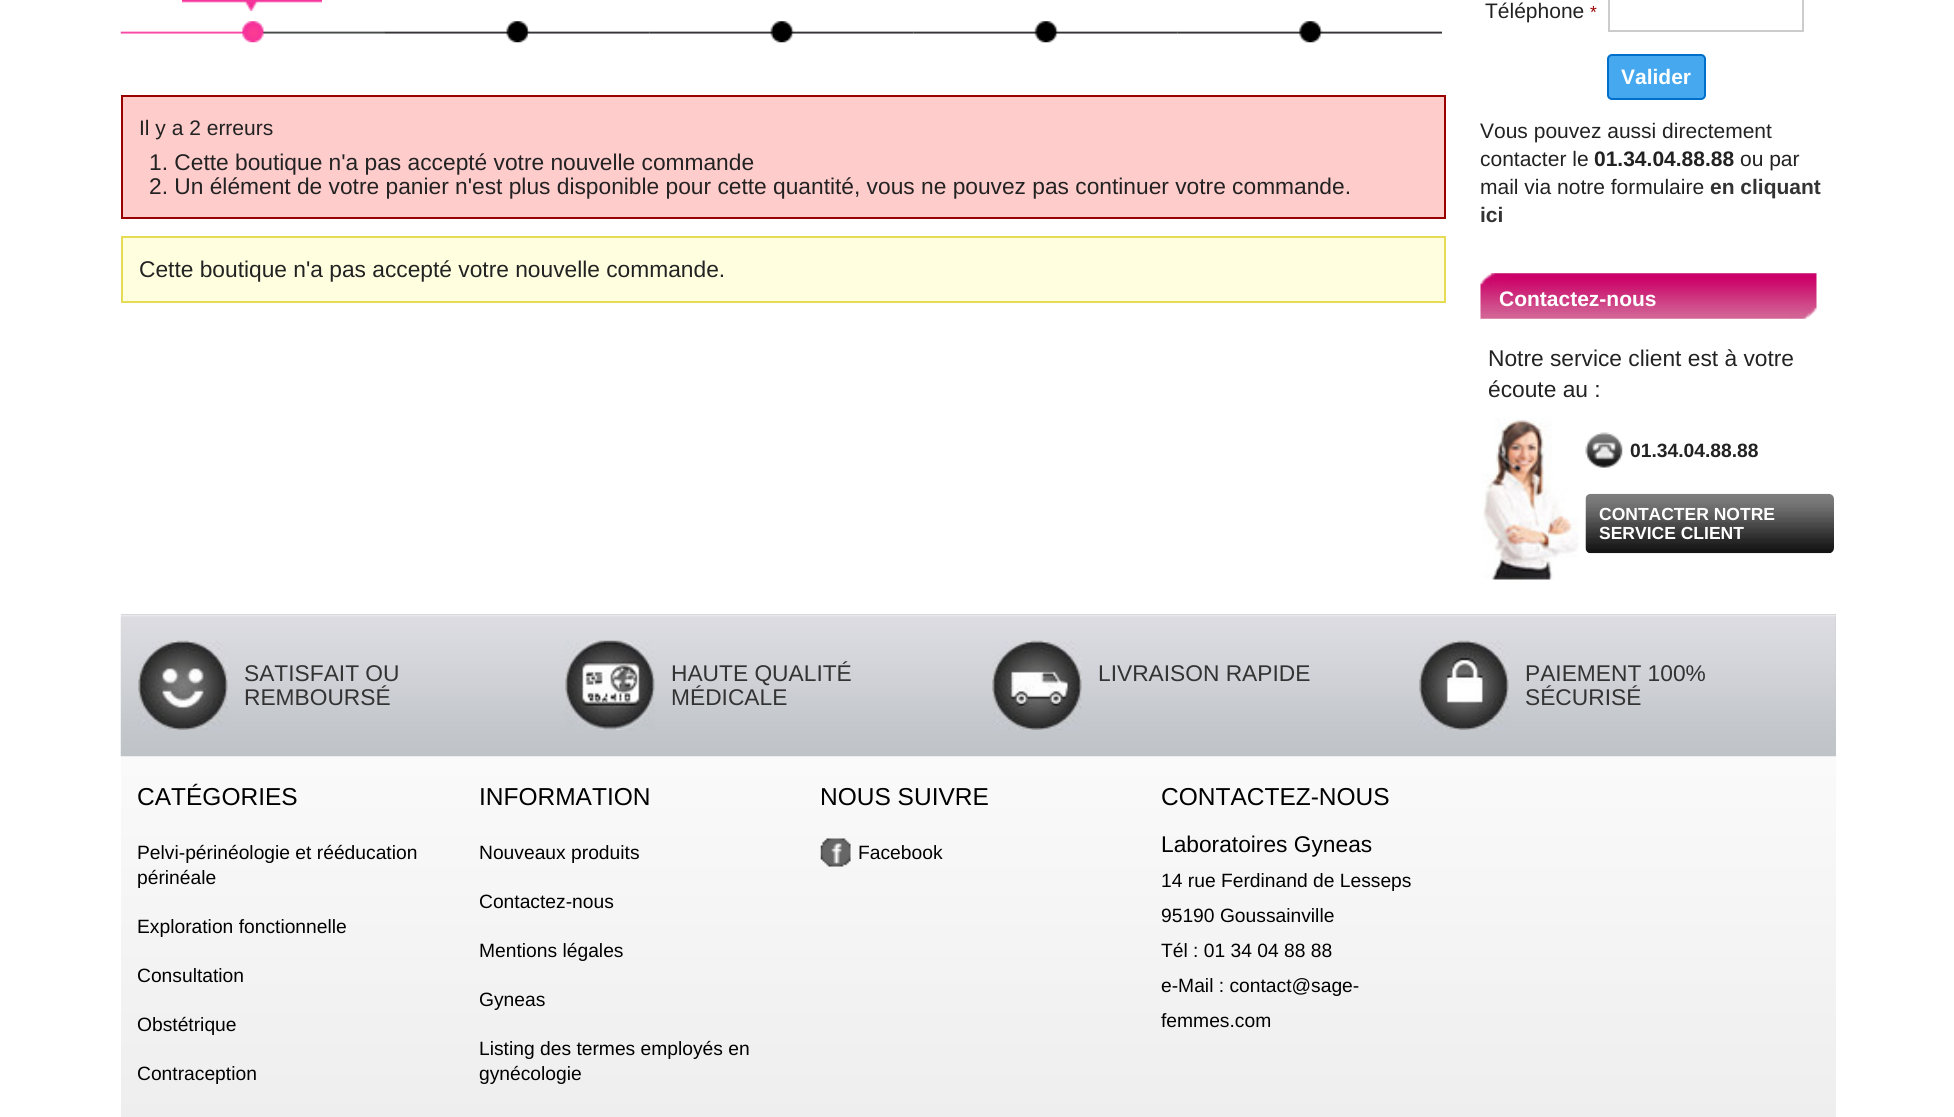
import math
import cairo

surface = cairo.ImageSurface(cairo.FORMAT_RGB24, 1954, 1117)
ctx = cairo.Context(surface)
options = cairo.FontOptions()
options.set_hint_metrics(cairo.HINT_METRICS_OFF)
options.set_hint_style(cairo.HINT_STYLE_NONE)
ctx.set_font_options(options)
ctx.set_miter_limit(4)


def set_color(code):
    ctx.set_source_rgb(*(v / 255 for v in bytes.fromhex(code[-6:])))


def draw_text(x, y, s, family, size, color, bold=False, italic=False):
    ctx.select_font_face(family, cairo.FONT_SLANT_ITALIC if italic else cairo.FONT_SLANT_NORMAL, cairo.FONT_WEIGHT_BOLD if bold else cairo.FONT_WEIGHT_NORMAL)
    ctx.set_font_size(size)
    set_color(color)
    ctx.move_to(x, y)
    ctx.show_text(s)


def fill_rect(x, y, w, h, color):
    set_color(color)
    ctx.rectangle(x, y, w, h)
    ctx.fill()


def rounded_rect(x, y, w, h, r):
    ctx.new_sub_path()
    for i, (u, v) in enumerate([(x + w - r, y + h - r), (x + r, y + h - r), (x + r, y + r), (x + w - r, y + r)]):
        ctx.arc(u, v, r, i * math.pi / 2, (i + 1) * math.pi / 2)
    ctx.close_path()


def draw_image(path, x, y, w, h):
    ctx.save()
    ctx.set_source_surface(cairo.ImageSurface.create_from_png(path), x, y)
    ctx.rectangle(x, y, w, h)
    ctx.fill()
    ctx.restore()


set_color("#ffffff")
ctx.paint()
draw_image("assets/img1.png", 120, 21, 265, 22)
draw_image("assets/img2.png", 182, 0, 140, 11)
draw_image("assets/img3.png", 385, 21, 265, 22)
draw_image("assets/img4.png", 649, 21, 265, 22)
draw_image("assets/img5.png", 913, 21, 265, 22)
draw_image("assets/img6.png", 1177, 21, 265, 22)
set_color("#ffcccc")
ctx.rectangle(122, 96, 1323, 122)
ctx.fill_preserve()
set_color("#990000")
ctx.stroke()
draw_text(139, 135, "Il y a 2 erreurs", "Liberation Sans", 21, "#222222")
draw_text(149, 170, "1. Cette boutique n'a pas accepté votre nouvelle commande", "Liberation Sans", 22.75, "#222222")
draw_text(149, 194, "2. Un élément de votre panier n'est plus disponible pour cette quantité, vous ne pouvez pas continuer votre commande.", "Liberation Sans", 22.75, "#222222")
set_color("#ffffe0")
ctx.rectangle(122, 237, 1323, 65)
ctx.fill_preserve()
set_color("#e6db55")
ctx.stroke()
draw_text(139, 277, "Cette boutique n'a pas accepté votre nouvelle commande.", "Liberation Sans", 22.75, "#222222")
draw_text(1485, 18, "Téléphone", "Liberation Sans", 21, "#222222")
draw_text(1590, 18, "*", "Liberation Sans", 17.5, "#990000")
ctx.rectangle(1609, -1, 194, 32)
set_color("#cccccc")
ctx.stroke()
set_color("#46a8ef")
rounded_rect(1608, 55, 97, 44, 4)
ctx.fill_preserve()
set_color("#006fcc")
ctx.stroke()
draw_text(1621, 84, "Valider", "Liberation Sans", 21, "#ffffff", bold=True)
draw_text(1480, 138, "Vous pouvez aussi directement", "Liberation Sans", 21, "#222222")
draw_text(1480, 166, "contacter le", "Liberation Sans", 21, "#222222")
draw_text(1594, 166, "01.34.04.88.88", "Liberation Sans", 21, "#222222", bold=True)
draw_text(1740, 166, "ou par", "Liberation Sans", 21, "#222222")
draw_text(1480, 194, "mail via notre formulaire", "Liberation Sans", 21, "#222222")
draw_text(1710, 194, "en cliquant", "Liberation Sans", 21, "#333333", bold=True)
draw_text(1480, 222, "ici", "Liberation Sans", 21, "#333333", bold=True)
draw_image("assets/img7.png", 1480, 273, 337, 46)
draw_text(1499, 306, "Contactez-nous", "Liberation Sans", 21, "#ffffff", bold=True)
draw_image("assets/img8.png", 1481, 418, 98, 162)
draw_text(1488, 366, "Notre service client est à votre", "Liberation Sans", 22.75, "#222222")
draw_text(1488, 397, "écoute au :", "Liberation Sans", 22.75, "#222222")
draw_image("assets/img9.png", 1585, 432, 38, 36)
draw_text(1630, 457, "01.34.04.88.88", "Liberation Sans", 19.25, "#222222", bold=True)
draw_image("assets/img10.png", 1585, 493, 249, 61)
draw_text(1599, 520, "CONTACTER NOTRE", "Liberation Sans", 17.5, "#ffffff", bold=True)
draw_text(1599, 539, "SERVICE CLIENT", "Liberation Sans", 17.5, "#ffffff", bold=True)
gradient = cairo.LinearGradient(978, 614, 978, 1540)
gradient.add_color_stop_rgba(0, 1, 1, 1, 1)
gradient.add_color_stop_rgba(0.58, 0.929, 0.929, 0.929, 1)
gradient.add_color_stop_rgba(0.81, 0.886, 0.886, 0.886, 1)
gradient.add_color_stop_rgba(1, 0.82, 0.82, 0.82, 1)
ctx.set_source(gradient)
ctx.rectangle(121, 756, 1715, 361)
ctx.fill()
fill_rect(121, 614, 1715, 142, "#c3c7cb")
draw_image("assets/img11.png", 120, 614, 1716, 143)
draw_image("assets/img12.png", 138, 640, 90, 90)
draw_text(244, 681, "SATISFAIT OU", "Liberation Sans", 22.75, "#333333")
draw_text(244, 705, "REMBOURSÉ", "Liberation Sans", 22.75, "#333333")
draw_image("assets/img13.png", 565, 640, 90, 90)
draw_text(671, 681, "HAUTE QUALITÉ", "Liberation Sans", 22.75, "#333333")
draw_text(671, 705, "MÉDICALE", "Liberation Sans", 22.75, "#333333")
draw_image("assets/img14.png", 992, 640, 90, 90)
draw_text(1098, 681, "LIVRAISON RAPIDE", "Liberation Sans", 22.75, "#333333")
draw_image("assets/img15.png", 1419, 640, 90, 90)
draw_text(1525, 681, "PAIEMENT 100%", "Liberation Sans", 22.75, "#333333")
draw_text(1525, 705, "SÉCURISÉ", "Liberation Sans", 22.75, "#333333")
draw_text(137, 805, "CATÉGORIES", "Liberation Sans", 24.5, "#000000")
draw_text(137, 859, "Pelvi-périnéologie et rééducation", "Liberation Sans", 19.25, "#000000")
draw_text(137, 884, "périnéale", "Liberation Sans", 19.25, "#000000")
draw_text(137, 933, "Exploration fonctionnelle", "Liberation Sans", 19.25, "#000000")
draw_text(137, 982, "Consultation", "Liberation Sans", 19.25, "#000000")
draw_text(137, 1031, "Obstétrique", "Liberation Sans", 19.25, "#000000")
draw_text(137, 1080, "Contraception", "Liberation Sans", 19.25, "#000000")
draw_text(479, 805, "INFORMATION", "Liberation Sans", 24.5, "#000000")
draw_text(479, 859, "Nouveaux produits", "Liberation Sans", 19.25, "#000000")
draw_text(479, 908, "Contactez-nous", "Liberation Sans", 19.25, "#000000")
draw_text(479, 957, "Mentions légales", "Liberation Sans", 19.25, "#000000")
draw_text(479, 1006, "Gyneas", "Liberation Sans", 19.25, "#000000")
draw_text(479, 1055, "Listing des termes employés en", "Liberation Sans", 19.25, "#000000")
draw_text(479, 1080, "gynécologie", "Liberation Sans", 19.25, "#000000")
draw_text(820, 805, "NOUS SUIVRE", "Liberation Sans", 24.5, "#000000")
draw_image("assets/img16.png", 820, 838, 31, 29)
draw_text(858, 859, "Facebook", "Liberation Sans", 19.25, "#000000")
draw_text(1161, 805, "CONTACTEZ-NOUS", "Liberation Sans", 24.5, "#000000")
draw_text(1161, 852, "Laboratoires Gyneas", "Liberation Sans", 22.75, "#000000")
draw_text(1161, 887, "14 rue Ferdinand de Lesseps", "Liberation Sans", 19.25, "#000000")
draw_text(1161, 922, "95190 Goussainville", "Liberation Sans", 19.25, "#000000")
draw_text(1161, 957, "Tél : 01 34 04 88 88", "Liberation Sans", 19.25, "#000000")
draw_text(1161, 992, "e-Mail : contact@sage-", "Liberation Sans", 19.25, "#000000")
draw_text(1161, 1027, "femmes.com", "Liberation Sans", 19.25, "#000000")
surface.write_to_png("output.png")
